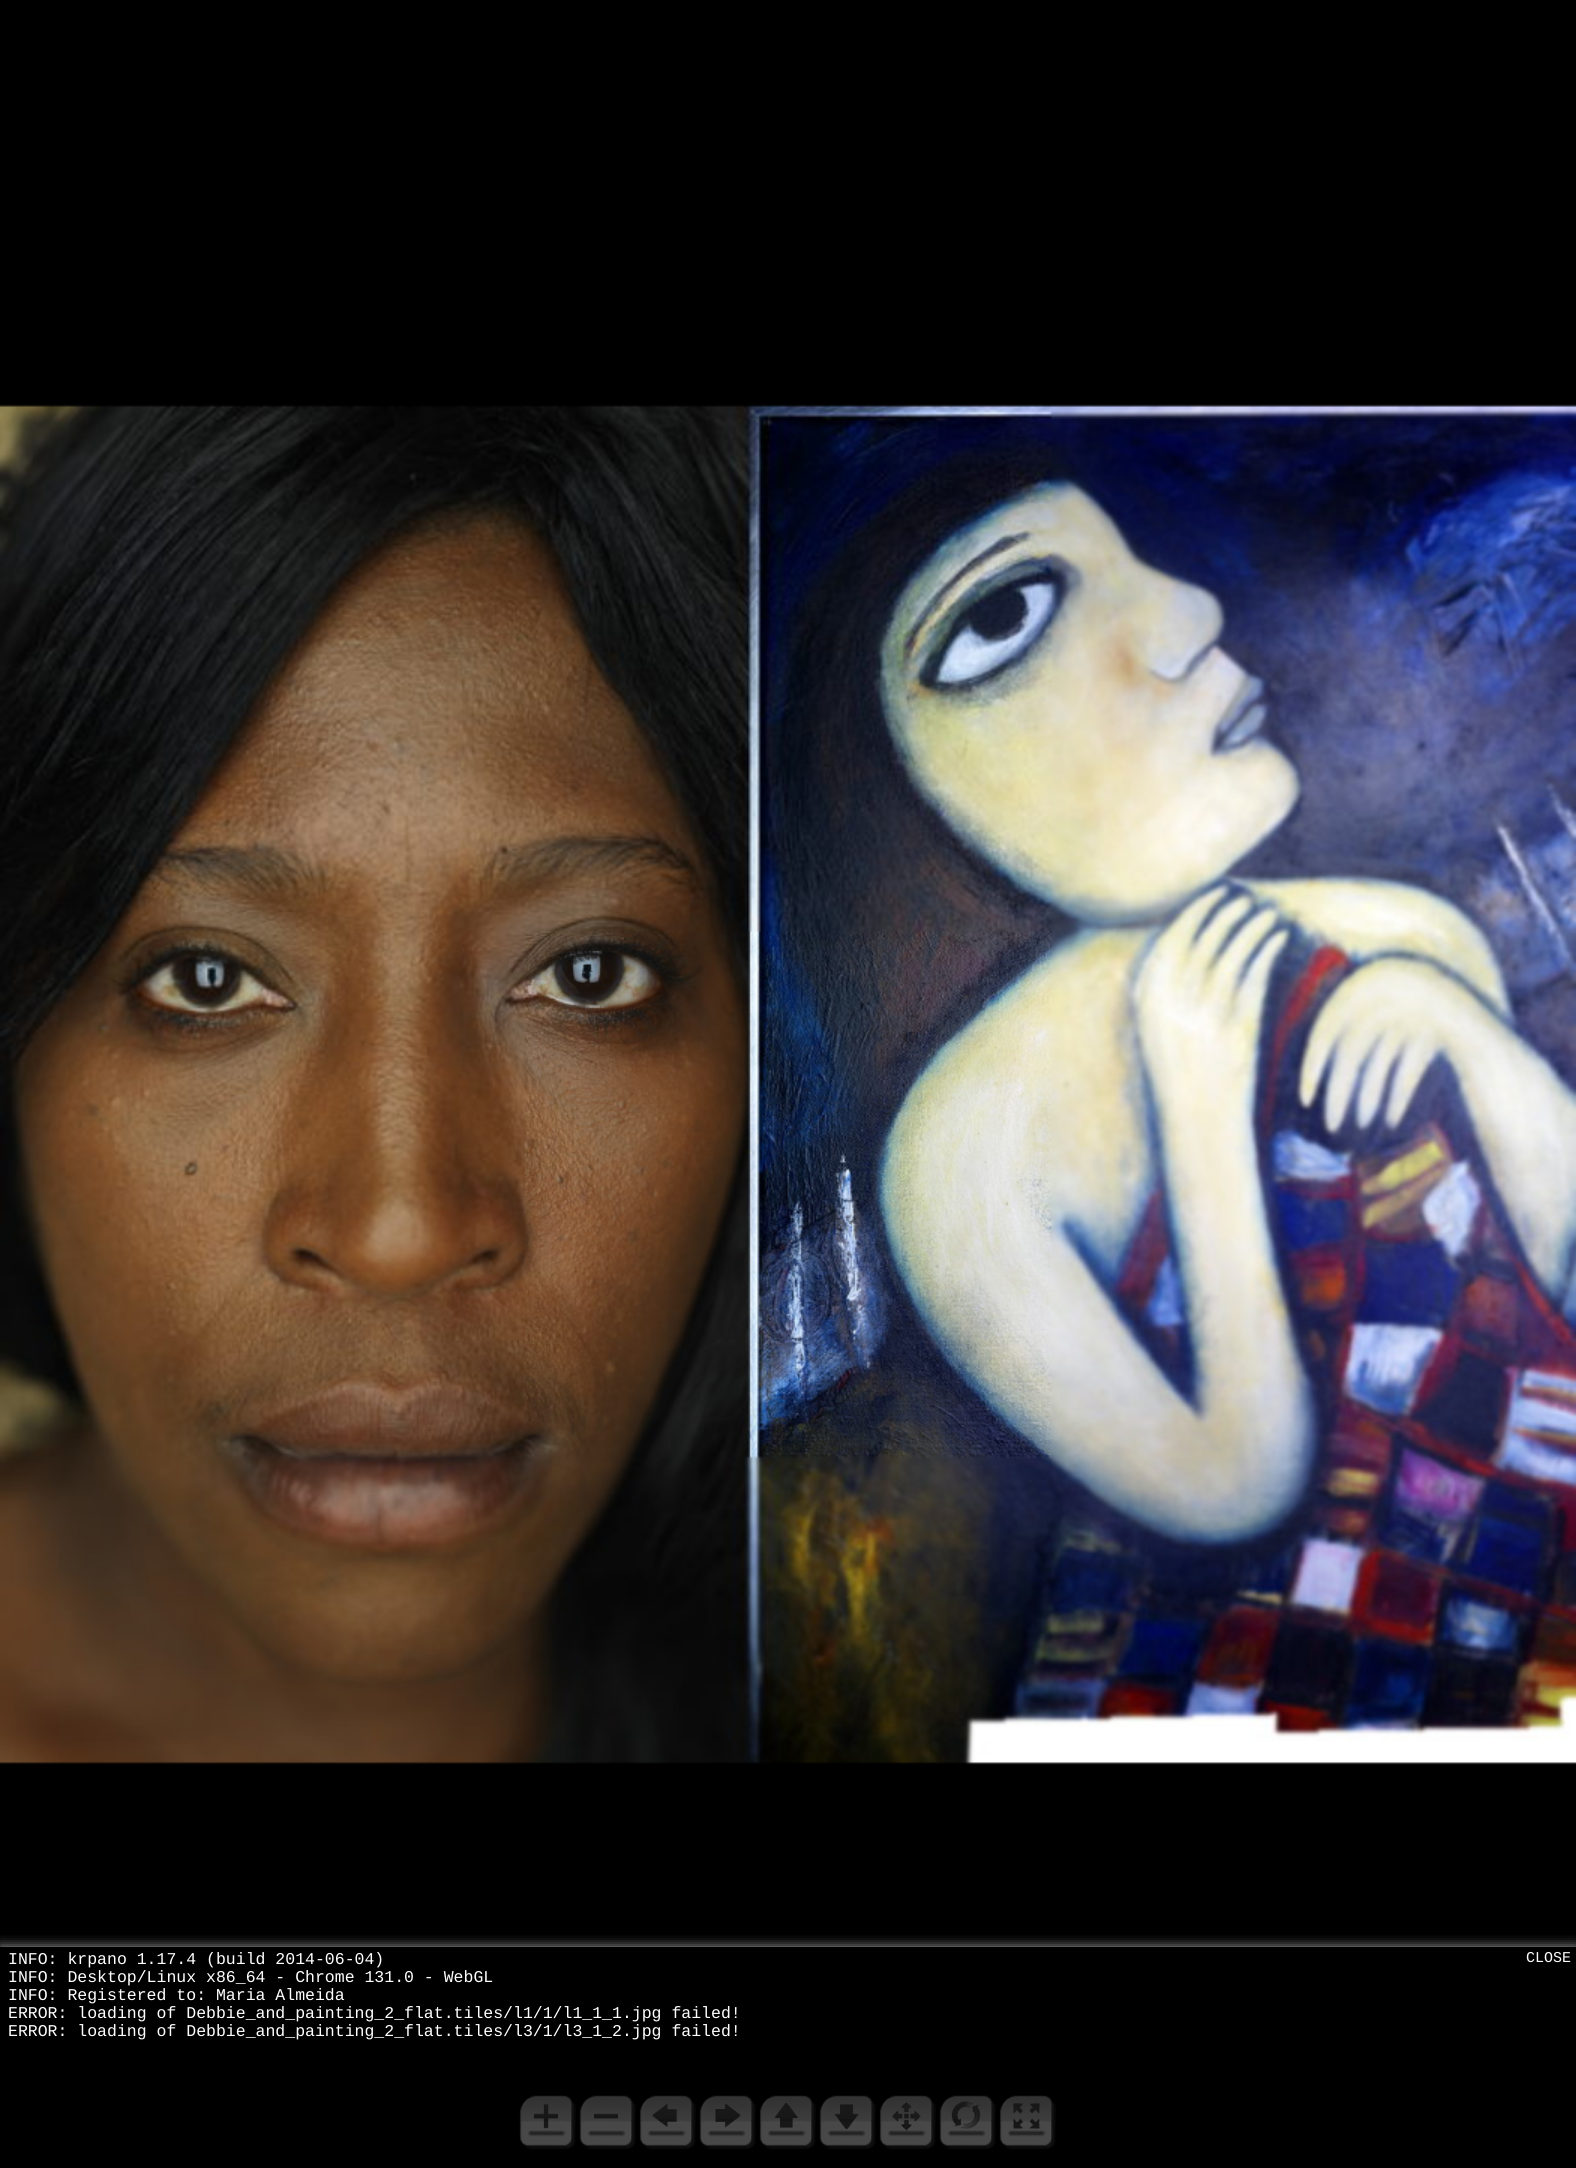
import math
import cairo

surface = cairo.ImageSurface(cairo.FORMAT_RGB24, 1576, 2168)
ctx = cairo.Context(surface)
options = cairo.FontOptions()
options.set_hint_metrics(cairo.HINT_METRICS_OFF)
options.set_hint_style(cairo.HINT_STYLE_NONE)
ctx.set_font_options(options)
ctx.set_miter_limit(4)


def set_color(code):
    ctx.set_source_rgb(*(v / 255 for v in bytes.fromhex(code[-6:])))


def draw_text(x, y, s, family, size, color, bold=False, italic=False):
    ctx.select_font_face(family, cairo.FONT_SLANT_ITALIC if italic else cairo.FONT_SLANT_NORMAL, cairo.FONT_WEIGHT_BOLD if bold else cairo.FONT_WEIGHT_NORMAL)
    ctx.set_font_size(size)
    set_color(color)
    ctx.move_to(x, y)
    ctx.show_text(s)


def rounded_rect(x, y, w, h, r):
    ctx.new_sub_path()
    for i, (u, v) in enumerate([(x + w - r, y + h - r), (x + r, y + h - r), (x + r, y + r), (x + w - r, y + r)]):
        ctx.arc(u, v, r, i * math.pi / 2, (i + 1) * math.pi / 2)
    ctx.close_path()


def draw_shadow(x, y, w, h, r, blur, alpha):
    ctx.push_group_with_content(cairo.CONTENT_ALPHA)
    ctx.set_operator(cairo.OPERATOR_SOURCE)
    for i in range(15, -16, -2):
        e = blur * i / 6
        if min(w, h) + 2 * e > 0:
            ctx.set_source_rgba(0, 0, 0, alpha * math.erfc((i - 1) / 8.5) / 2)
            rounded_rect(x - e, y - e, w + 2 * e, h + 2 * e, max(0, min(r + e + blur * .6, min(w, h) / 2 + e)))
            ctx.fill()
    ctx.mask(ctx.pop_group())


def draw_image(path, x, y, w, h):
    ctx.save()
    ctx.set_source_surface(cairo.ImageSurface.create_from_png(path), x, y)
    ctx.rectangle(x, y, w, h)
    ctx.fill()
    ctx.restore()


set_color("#000000")
ctx.paint()
draw_image("assets/img1.png", 0, 404, 1576, 1361)
draw_image("assets/img2.png", 519, 2095, 58, 55)
draw_image("assets/img3.png", 579, 2095, 58, 55)
draw_image("assets/img4.png", 639, 2095, 58, 55)
draw_image("assets/img5.png", 699, 2095, 58, 55)
draw_image("assets/img6.png", 759, 2095, 58, 55)
draw_image("assets/img7.png", 819, 2095, 58, 55)
draw_image("assets/img8.png", 879, 2095, 58, 55)
draw_image("assets/img9.png", 939, 2095, 58, 55)
draw_image("assets/img10.png", 999, 2095, 58, 55)
ctx.save()
ctx.rectangle(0, 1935, 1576, 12)
ctx.clip()
set_color("#ababab")
draw_shadow(0, 1947, 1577, 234, 0, 6, 1)
ctx.restore()
draw_text(8, 1964, "INFO: krpano 1.17.4 (build 2014-06-04)", "Liberation Mono", 16.5, "#ffffff")
draw_text(8, 1982, "INFO: Desktop/Linux x86_64 - Chrome 131.0 - WebGL", "Liberation Mono", 16.5, "#ffffff")
draw_text(8, 2000, "INFO: Registered to: Maria Almeida", "Liberation Mono", 16.5, "#ffffff")
draw_text(8, 2018, "ERROR: loading of Debbie_and_painting_2_flat.tiles/l1/1/l1_1_1.jpg failed!", "Liberation Mono", 16.5, "#ffffff")
draw_text(8, 2036, "ERROR: loading of Debbie_and_painting_2_flat.tiles/l3/1/l3_1_2.jpg failed!", "Liberation Mono", 16.5, "#ffffff")
draw_text(1526, 1962, "CLOSE", "Liberation Mono", 15, "#ffffff")
surface.write_to_png("output.png")
